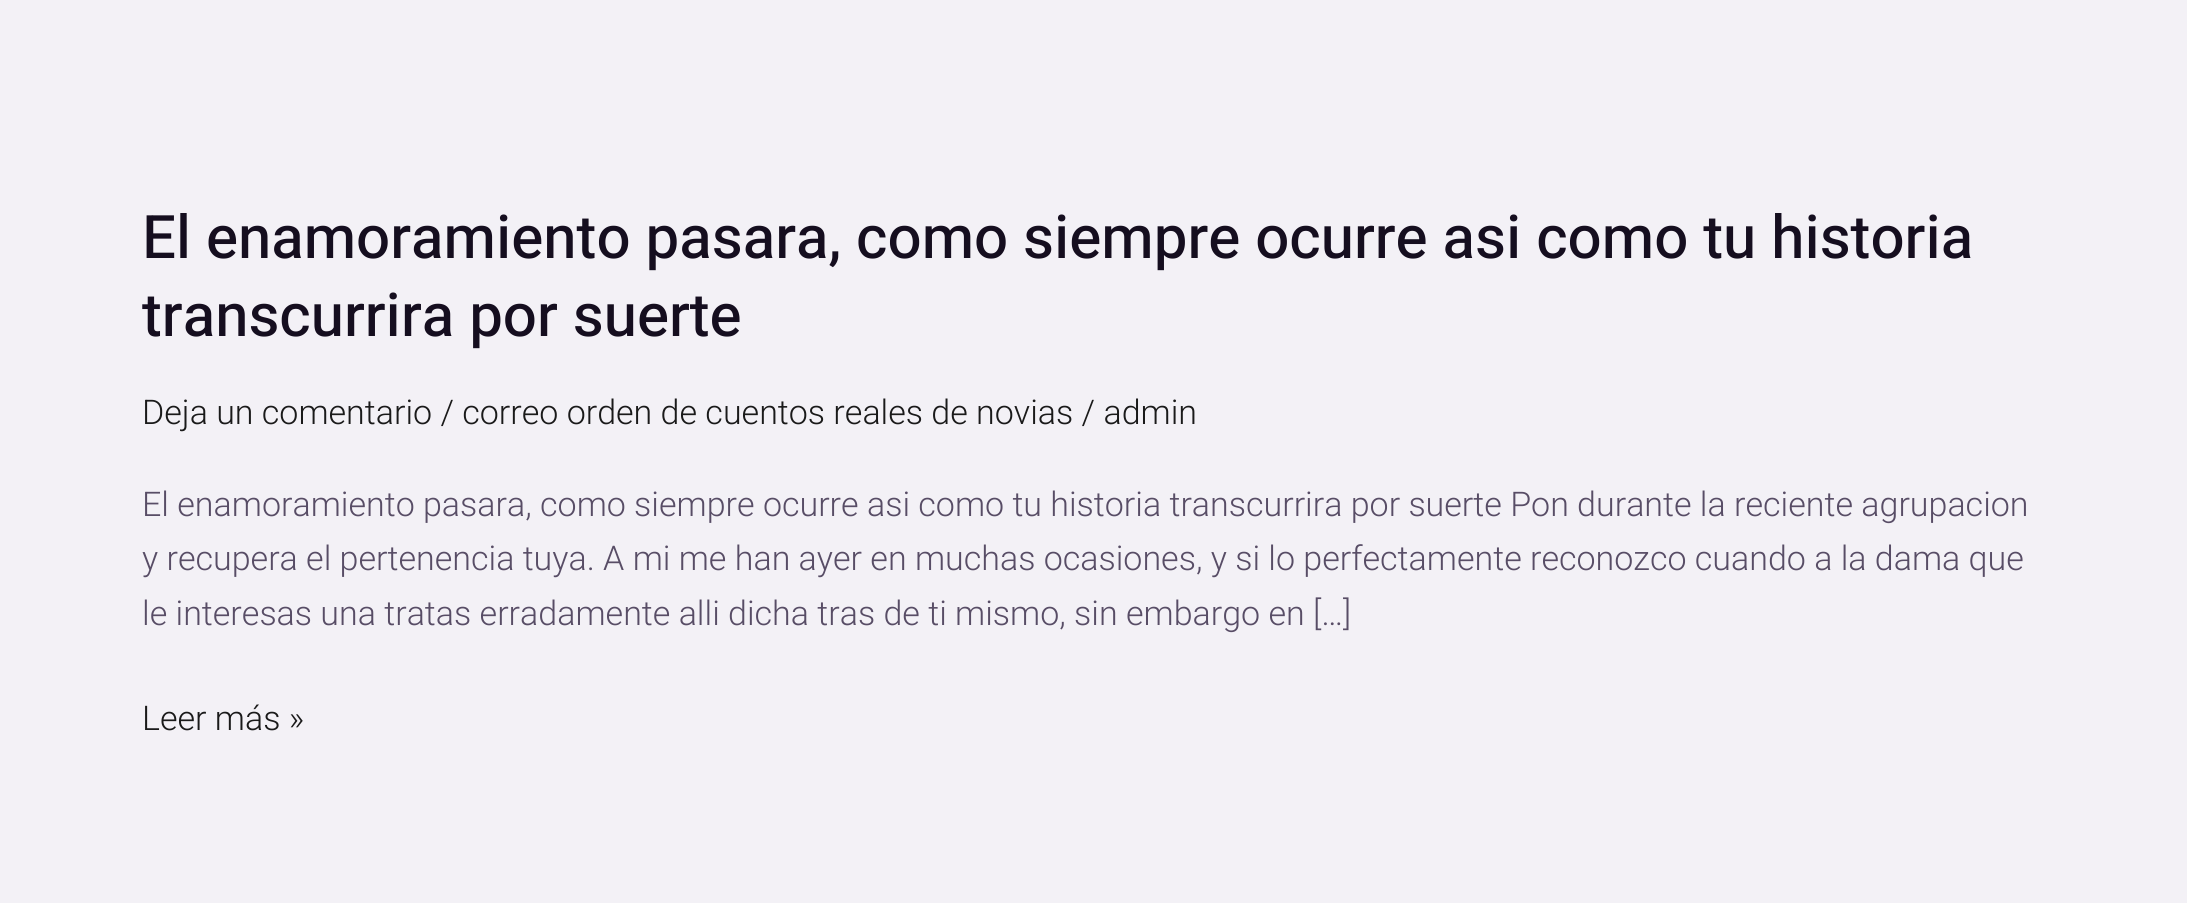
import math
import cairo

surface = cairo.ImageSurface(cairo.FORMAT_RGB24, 2187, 903)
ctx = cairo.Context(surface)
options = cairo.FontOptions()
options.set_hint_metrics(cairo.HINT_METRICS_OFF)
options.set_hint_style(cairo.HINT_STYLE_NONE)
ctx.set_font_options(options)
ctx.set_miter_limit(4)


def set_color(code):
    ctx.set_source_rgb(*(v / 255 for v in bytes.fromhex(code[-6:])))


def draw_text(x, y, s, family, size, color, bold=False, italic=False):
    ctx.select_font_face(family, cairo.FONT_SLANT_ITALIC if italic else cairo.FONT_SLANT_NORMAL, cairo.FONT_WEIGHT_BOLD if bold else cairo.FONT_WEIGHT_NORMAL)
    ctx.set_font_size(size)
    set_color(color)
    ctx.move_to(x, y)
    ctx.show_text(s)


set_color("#f3f1f6")
ctx.paint()
draw_text(142, 258, "El enamoramiento pasara, como siempre ocurre asi como tu historia", "Heebo Medium", 60, "#150e1f")
draw_text(142, 336, "transcurrira por suerte", "Heebo Medium", 60, "#150e1f")
draw_text(142, 424, "Deja un comentario / correo orden de cuentos reales de novias / admin", "Roboto Light", 34, "#1a1a1a")
draw_text(142, 516, "El enamoramiento pasara, como siempre ocurre asi como tu historia transcurrira por suerte Pon durante la reciente agrupacion", "Roboto Light", 34, "#584d66")
draw_text(142, 570, "y recupera el pertenencia tuya. A mi me han ayer en muchas ocasiones, y si lo perfectamente reconozco cuando a la dama que", "Roboto Light", 34, "#584d66")
draw_text(142, 625, "le interesas una tratas erradamente alli dicha tras de ti mismo, sin embargo en […]", "Roboto Light", 34, "#584d66")
draw_text(142, 730, "Leer más »", "Roboto Light", 34, "#1a1a1a")
surface.write_to_png("output.png")
